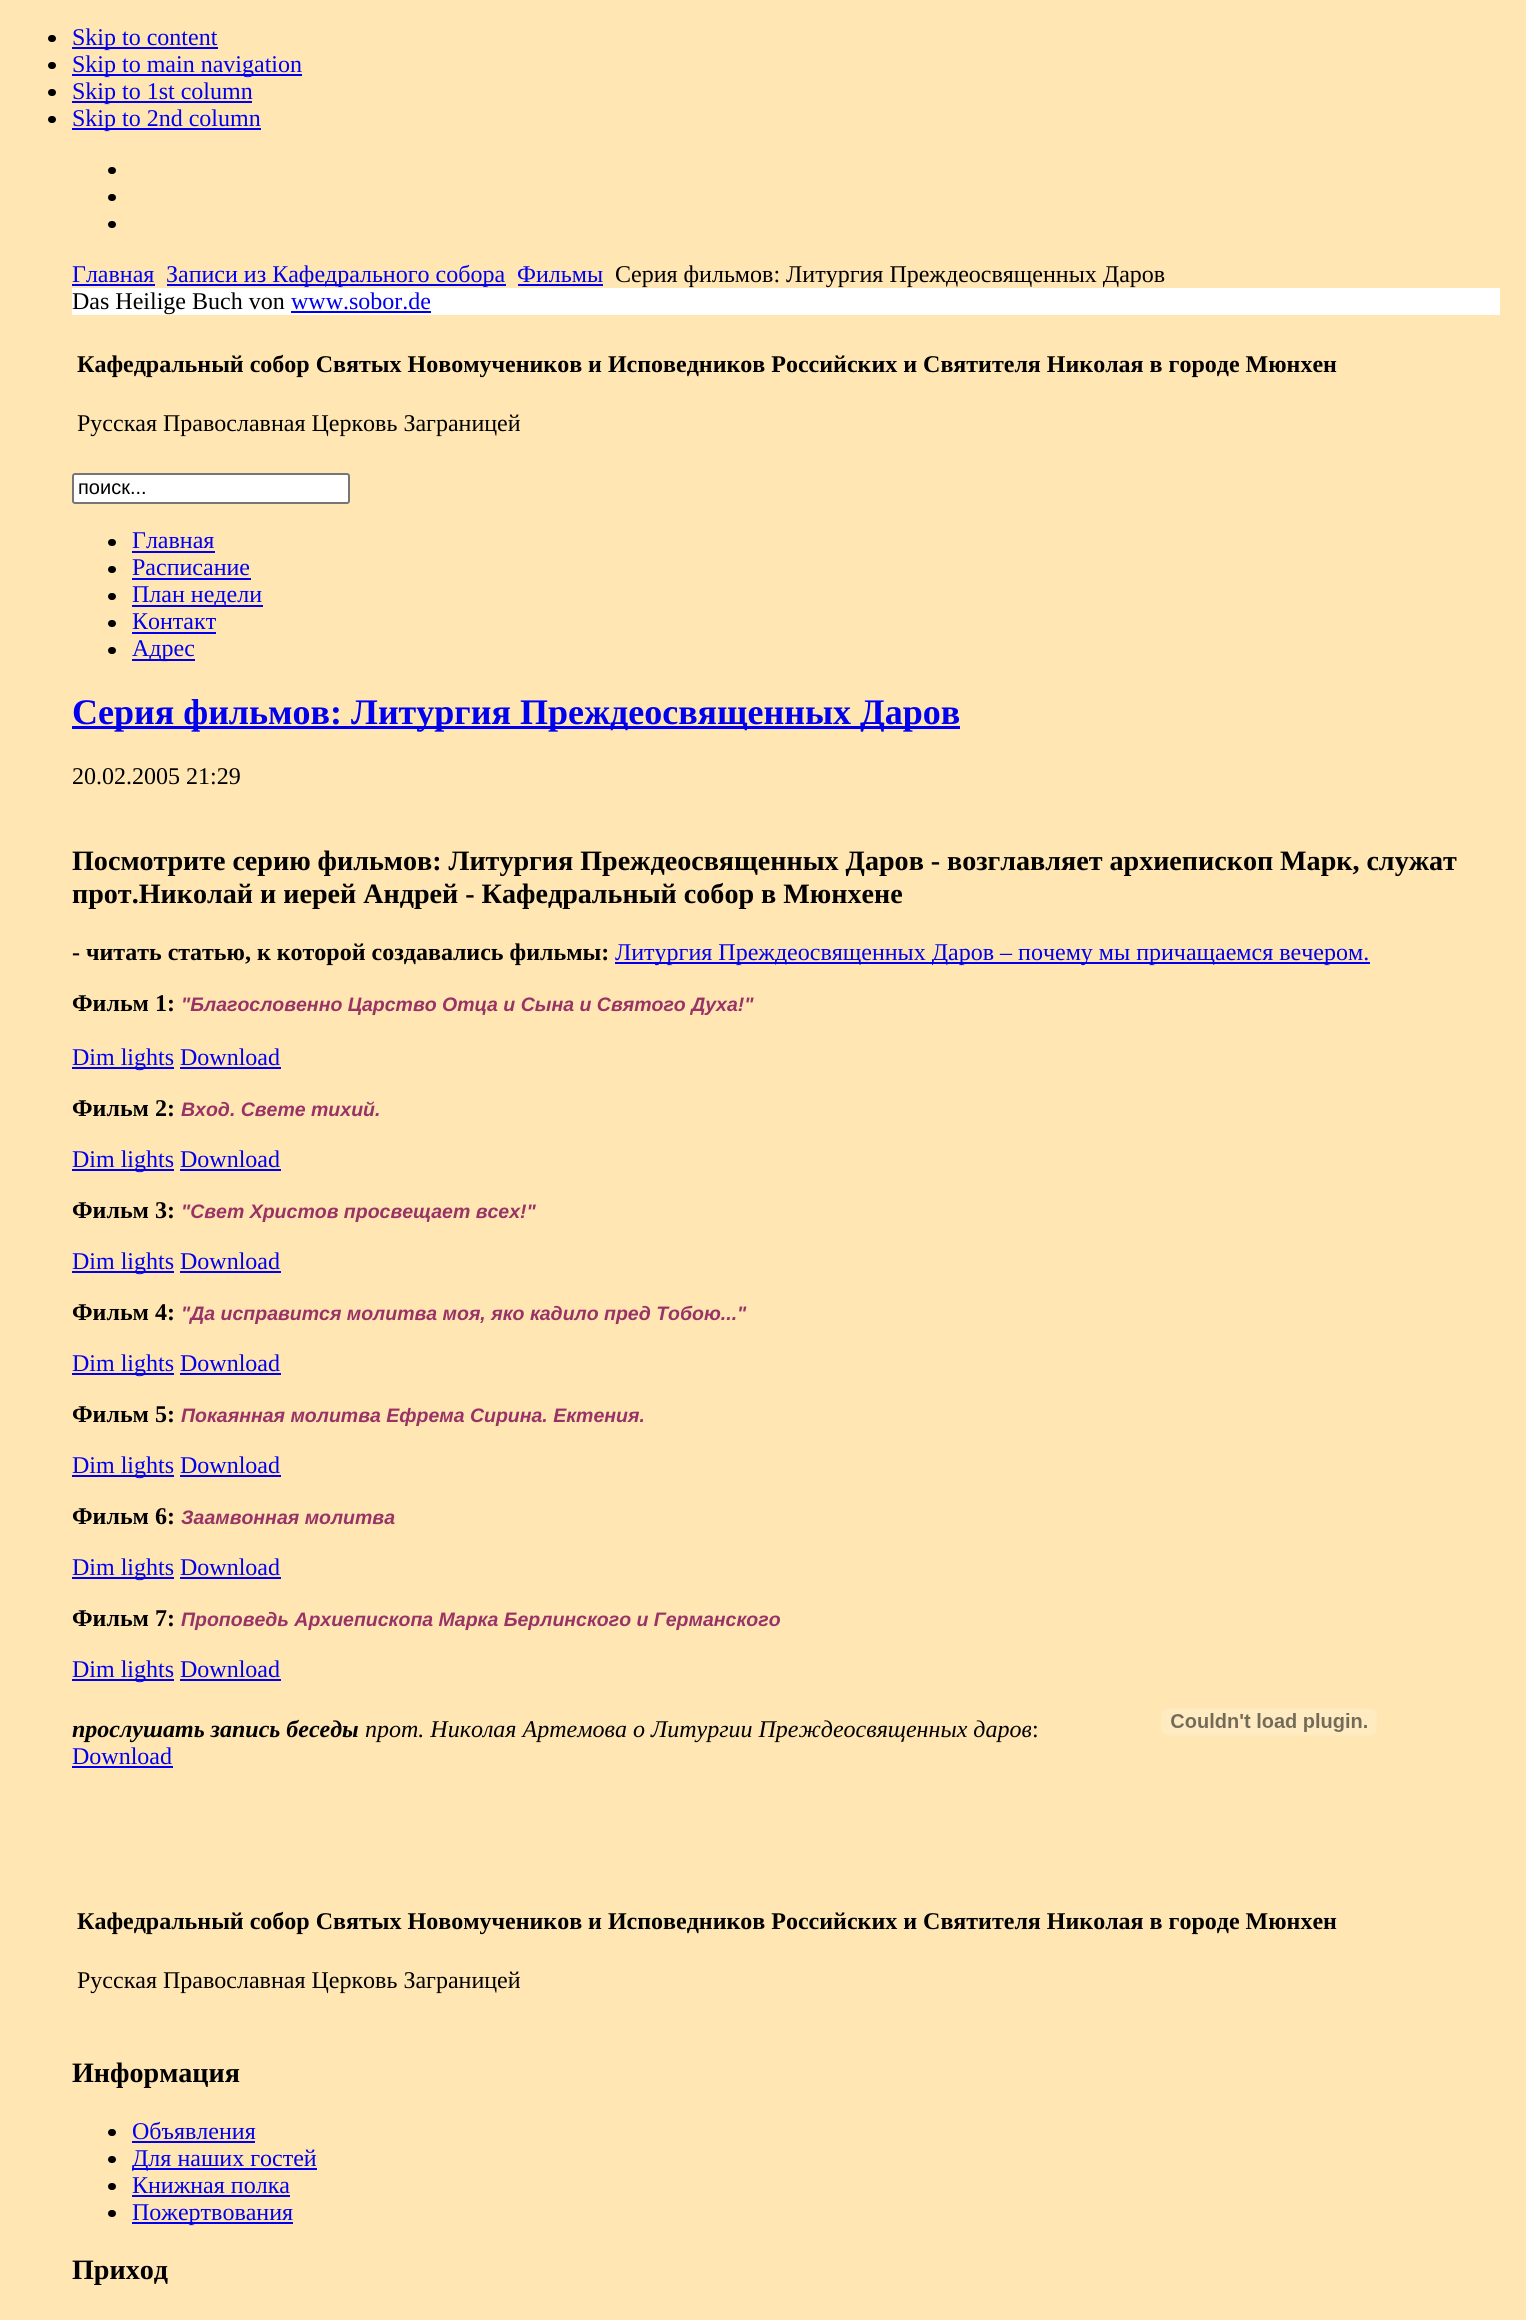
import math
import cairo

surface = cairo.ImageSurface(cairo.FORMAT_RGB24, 1526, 2320)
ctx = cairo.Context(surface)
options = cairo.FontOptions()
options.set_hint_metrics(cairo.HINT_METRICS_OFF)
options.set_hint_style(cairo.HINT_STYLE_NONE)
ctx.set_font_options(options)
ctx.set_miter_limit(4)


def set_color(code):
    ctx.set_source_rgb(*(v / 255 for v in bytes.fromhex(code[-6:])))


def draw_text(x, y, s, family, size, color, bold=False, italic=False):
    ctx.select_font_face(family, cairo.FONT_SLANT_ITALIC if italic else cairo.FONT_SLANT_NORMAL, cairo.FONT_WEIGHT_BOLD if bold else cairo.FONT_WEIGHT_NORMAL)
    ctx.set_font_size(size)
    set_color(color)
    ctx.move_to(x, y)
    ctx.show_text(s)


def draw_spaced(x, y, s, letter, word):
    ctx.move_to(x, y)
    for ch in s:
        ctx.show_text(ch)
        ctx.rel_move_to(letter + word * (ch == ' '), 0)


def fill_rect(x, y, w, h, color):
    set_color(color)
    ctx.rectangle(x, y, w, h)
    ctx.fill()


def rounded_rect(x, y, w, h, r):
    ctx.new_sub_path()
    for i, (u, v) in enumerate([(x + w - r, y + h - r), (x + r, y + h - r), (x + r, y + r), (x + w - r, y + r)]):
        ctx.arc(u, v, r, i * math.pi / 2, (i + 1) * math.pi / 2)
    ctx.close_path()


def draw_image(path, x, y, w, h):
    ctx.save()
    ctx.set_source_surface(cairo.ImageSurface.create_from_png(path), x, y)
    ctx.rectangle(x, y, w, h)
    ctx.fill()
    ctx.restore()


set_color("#ffe6b3")
ctx.paint()
set_color("#000000")
rounded_rect(48, 35, 8, 7, 3.5)
ctx.fill()
fill_rect(72, 47, 146, 2, "#0000ee")
draw_text(72, 45, "Skip to content", "Liberation Serif", 24, "#0000ee")
set_color("#000000")
rounded_rect(48, 62, 8, 7, 3.5)
ctx.fill()
fill_rect(72, 74, 230, 2, "#0000ee")
draw_text(72, 72, "Skip to main navigation", "Liberation Serif", 24, "#0000ee")
set_color("#000000")
rounded_rect(48, 89, 8, 7, 3.5)
ctx.fill()
fill_rect(72, 101, 180, 2, "#0000ee")
draw_text(72, 99, "Skip to 1st column", "Liberation Serif", 24, "#0000ee")
set_color("#000000")
rounded_rect(48, 116, 8, 7, 3.5)
ctx.fill()
fill_rect(72, 128, 189, 2, "#0000ee")
draw_text(72, 126, "Skip to 2nd column", "Liberation Serif", 24, "#0000ee")
set_color("#000000")
rounded_rect(108, 167, 8, 7, 3.5)
ctx.fill()
rounded_rect(108, 194, 8, 7, 3.5)
ctx.fill()
rounded_rect(108, 221, 8, 7, 3.5)
ctx.fill()
draw_text(72, 282, "Главная", "Liberation Serif", 24, "#0000ee")
fill_rect(72, 284, 83, 2, "#0000ee")
fill_rect(167, 284, 339, 2, "#0000ee")
draw_text(166, 282, "Записи из Кафедрального собора", "Liberation Serif", 24, "#0000ee")
draw_text(517, 282, "Фильмы", "Liberation Serif", 24, "#0000ee")
fill_rect(518, 284, 85, 2, "#0000ee")
draw_text(615, 282, "Серия фильмов: Литургия Преждеосвященных Даров", "Liberation Serif", 24, "#000000")
fill_rect(72, 288, 1428, 27, "#ffffff")
draw_text(72, 309, "Das Heilige Buch von", "Liberation Serif", 24, "#000000")
draw_text(291, 309, "www.sobor.de", "Liberation Serif", 24, "#0000ee")
fill_rect(291, 311, 140, 2, "#0000ee")
draw_text(77, 372, "Кафедральный собор Святых Новомучеников и Исповедников Российских и Святителя Николая в городе Мюнхен", "Liberation Serif", 24, "#000000", bold=True)
draw_text(77, 431, "Русская Православная Церковь Заграницей", "Liberation Serif", 24, "#000000")
set_color("#ffffff")
rounded_rect(73, 474, 276, 29, 2)
ctx.fill_preserve()
set_color("#767676")
ctx.stroke()
draw_text(78, 494, "поиск...", "Liberation Sans", 20, "#000000")
rounded_rect(108, 539, 8, 7, 3.5)
ctx.fill()
draw_text(132, 548, "Главная", "Liberation Serif", 24, "#0000ee")
fill_rect(132, 551, 83, 2, "#0000ee")
set_color("#000000")
rounded_rect(108, 566, 8, 7, 3.5)
ctx.fill()
draw_text(132, 575, "Расписание", "Liberation Serif", 24, "#0000ee")
fill_rect(132, 578, 119, 2, "#0000ee")
set_color("#000000")
rounded_rect(108, 593, 8, 7, 3.5)
ctx.fill()
fill_rect(132, 605, 131, 2, "#0000ee")
draw_text(132, 602, "План недели", "Liberation Serif", 24, "#0000ee")
set_color("#000000")
rounded_rect(108, 620, 8, 7, 3.5)
ctx.fill()
draw_text(132, 629, "Контакт", "Liberation Serif", 24, "#0000ee")
fill_rect(132, 632, 84, 2, "#0000ee")
set_color("#000000")
rounded_rect(108, 647, 8, 7, 3.5)
ctx.fill()
fill_rect(132, 659, 63, 2, "#0000ee")
draw_text(132, 656, "Адрес", "Liberation Serif", 24, "#0000ee")
fill_rect(72, 726, 888, 3, "#0000ee")
draw_text(72, 724, "Серия фильмов: Литургия Преждеосвященных Даров", "Liberation Serif", 36, "#0000ee", bold=True)
draw_text(72, 784, "20.02.2005 21:29", "Liberation Serif", 24, "#000000")
ctx.select_font_face("Liberation Serif", cairo.FONT_SLANT_NORMAL, cairo.FONT_WEIGHT_BOLD)
ctx.set_font_size(28.1)
draw_spaced(72, 870, "Посмотрите серию фильмов: Литургия Преждеосвященных Даров - возглавляет архиепископ Марк, служат", 0, -0.1)
draw_text(72, 903, "прот.Николай и иерей Андрей - Кафедральный собор в Мюнхене", "Liberation Serif", 28.1, "#000000", bold=True)
draw_text(72, 960, "- читать статью, к которой создавались фильмы:", "Liberation Serif", 24, "#000000", bold=True)
fill_rect(615, 962, 755, 2, "#0000ee")
draw_text(615, 960, "Литургия Преждеосвященных Даров – почему мы причащаемся вечером.", "Liberation Serif", 24, "#0000ee")
draw_text(72, 1011, "Фильм 1:", "Liberation Serif", 24, "#000000", bold=True)
draw_text(181, 1011, "\"Благословенно Царство Отца и Сына и Святого Духа!\"", "Liberation Sans", 19.5, "#993366", bold=True, italic=True)
fill_rect(72, 1067, 102, 2, "#0000ee")
draw_text(72, 1065, "Dim lights Download", "Liberation Serif", 24, "#0000ee")
fill_rect(180, 1067, 101, 2, "#0000ee")
draw_text(72, 1116, "Фильм 2:", "Liberation Serif", 24, "#000000", bold=True)
draw_text(181, 1116, "Вход. Свете тихий.", "Liberation Sans", 19.5, "#993366", bold=True, italic=True)
fill_rect(72, 1169, 102, 2, "#0000ee")
draw_text(72, 1167, "Dim lights Download", "Liberation Serif", 24, "#0000ee")
fill_rect(180, 1169, 101, 2, "#0000ee")
draw_text(72, 1218, "Фильм 3:", "Liberation Serif", 24, "#000000", bold=True)
draw_text(181, 1218, "\"Свет Христов просвещает всех!\"", "Liberation Sans", 19.5, "#993366", bold=True, italic=True)
fill_rect(72, 1271, 102, 2, "#0000ee")
draw_text(72, 1269, "Dim lights Download", "Liberation Serif", 24, "#0000ee")
fill_rect(180, 1271, 101, 2, "#0000ee")
draw_text(72, 1320, "Фильм 4:", "Liberation Serif", 24, "#000000", bold=True)
draw_text(181, 1320, "\"Да исправится молитва моя, яко кадило пред Тобою...\"", "Liberation Sans", 19.5, "#993366", bold=True, italic=True)
fill_rect(72, 1373, 102, 2, "#0000ee")
draw_text(72, 1371, "Dim lights Download", "Liberation Serif", 24, "#0000ee")
fill_rect(180, 1373, 101, 2, "#0000ee")
draw_text(72, 1422, "Фильм 5:", "Liberation Serif", 24, "#000000", bold=True)
draw_text(181, 1422, "Покаянная молитва Ефрема Сирина. Ектения.", "Liberation Sans", 19.5, "#993366", bold=True, italic=True)
fill_rect(72, 1475, 102, 2, "#0000ee")
draw_text(72, 1473, "Dim lights Download", "Liberation Serif", 24, "#0000ee")
fill_rect(180, 1475, 101, 2, "#0000ee")
draw_text(72, 1524, "Фильм 6:", "Liberation Serif", 24, "#000000", bold=True)
draw_text(181, 1524, "Заамвонная молитва", "Liberation Sans", 19.5, "#993366", bold=True, italic=True)
fill_rect(72, 1577, 102, 2, "#0000ee")
draw_text(72, 1575, "Dim lights Download", "Liberation Serif", 24, "#0000ee")
fill_rect(180, 1577, 101, 2, "#0000ee")
draw_text(72, 1626, "Фильм 7:", "Liberation Serif", 24, "#000000", bold=True)
draw_text(181, 1626, "Проповедь Архиепископа Марка Берлинского и Германского", "Liberation Sans", 19.5, "#993366", bold=True, italic=True)
fill_rect(72, 1679, 102, 2, "#0000ee")
draw_text(72, 1677, "Dim lights Download", "Liberation Serif", 24, "#0000ee")
fill_rect(180, 1679, 101, 2, "#0000ee")
draw_text(72, 1737, "прослушать запись беседы", "Liberation Serif", 24, "#000000", bold=True, italic=True)
draw_text(365, 1737, "прот. Николая Артемова о Литургии Преждеосвященных даров", "Liberation Serif", 24, "#000000", italic=True)
draw_text(1032, 1737, ":", "Liberation Serif", 24, "#000000")
draw_image("assets/img1.png", 1161, 1708, 216, 28)
draw_text(72, 1764, "Download", "Liberation Serif", 24, "#0000ee")
fill_rect(72, 1766, 101, 2, "#0000ee")
draw_text(77, 1929, "Кафедральный собор Святых Новомучеников и Исповедников Российских и Святителя Николая в городе Мюнхен", "Liberation Serif", 24, "#000000", bold=True)
draw_text(77, 1988, "Русская Православная Церковь Заграницей", "Liberation Serif", 24, "#000000")
draw_text(72, 2082, "Информация", "Liberation Serif", 28.1, "#000000", bold=True)
rounded_rect(108, 2129, 8, 7, 3.5)
ctx.fill()
draw_text(132, 2139, "Объявления", "Liberation Serif", 24, "#0000ee")
fill_rect(132, 2141, 123, 2, "#0000ee")
set_color("#000000")
rounded_rect(108, 2156, 8, 7, 3.5)
ctx.fill()
fill_rect(132, 2168, 185, 2, "#0000ee")
draw_text(132, 2166, "Для наших гостей", "Liberation Serif", 24, "#0000ee")
set_color("#000000")
rounded_rect(108, 2183, 8, 7, 3.5)
ctx.fill()
draw_text(132, 2193, "Книжная полка", "Liberation Serif", 24, "#0000ee")
fill_rect(132, 2195, 158, 2, "#0000ee")
set_color("#000000")
rounded_rect(108, 2210, 8, 7, 3.5)
ctx.fill()
fill_rect(132, 2222, 161, 2, "#0000ee")
draw_text(132, 2220, "Пожертвования", "Liberation Serif", 24, "#0000ee")
draw_text(72, 2279, "Приход", "Liberation Serif", 28.1, "#000000", bold=True)
surface.write_to_png("output.png")
